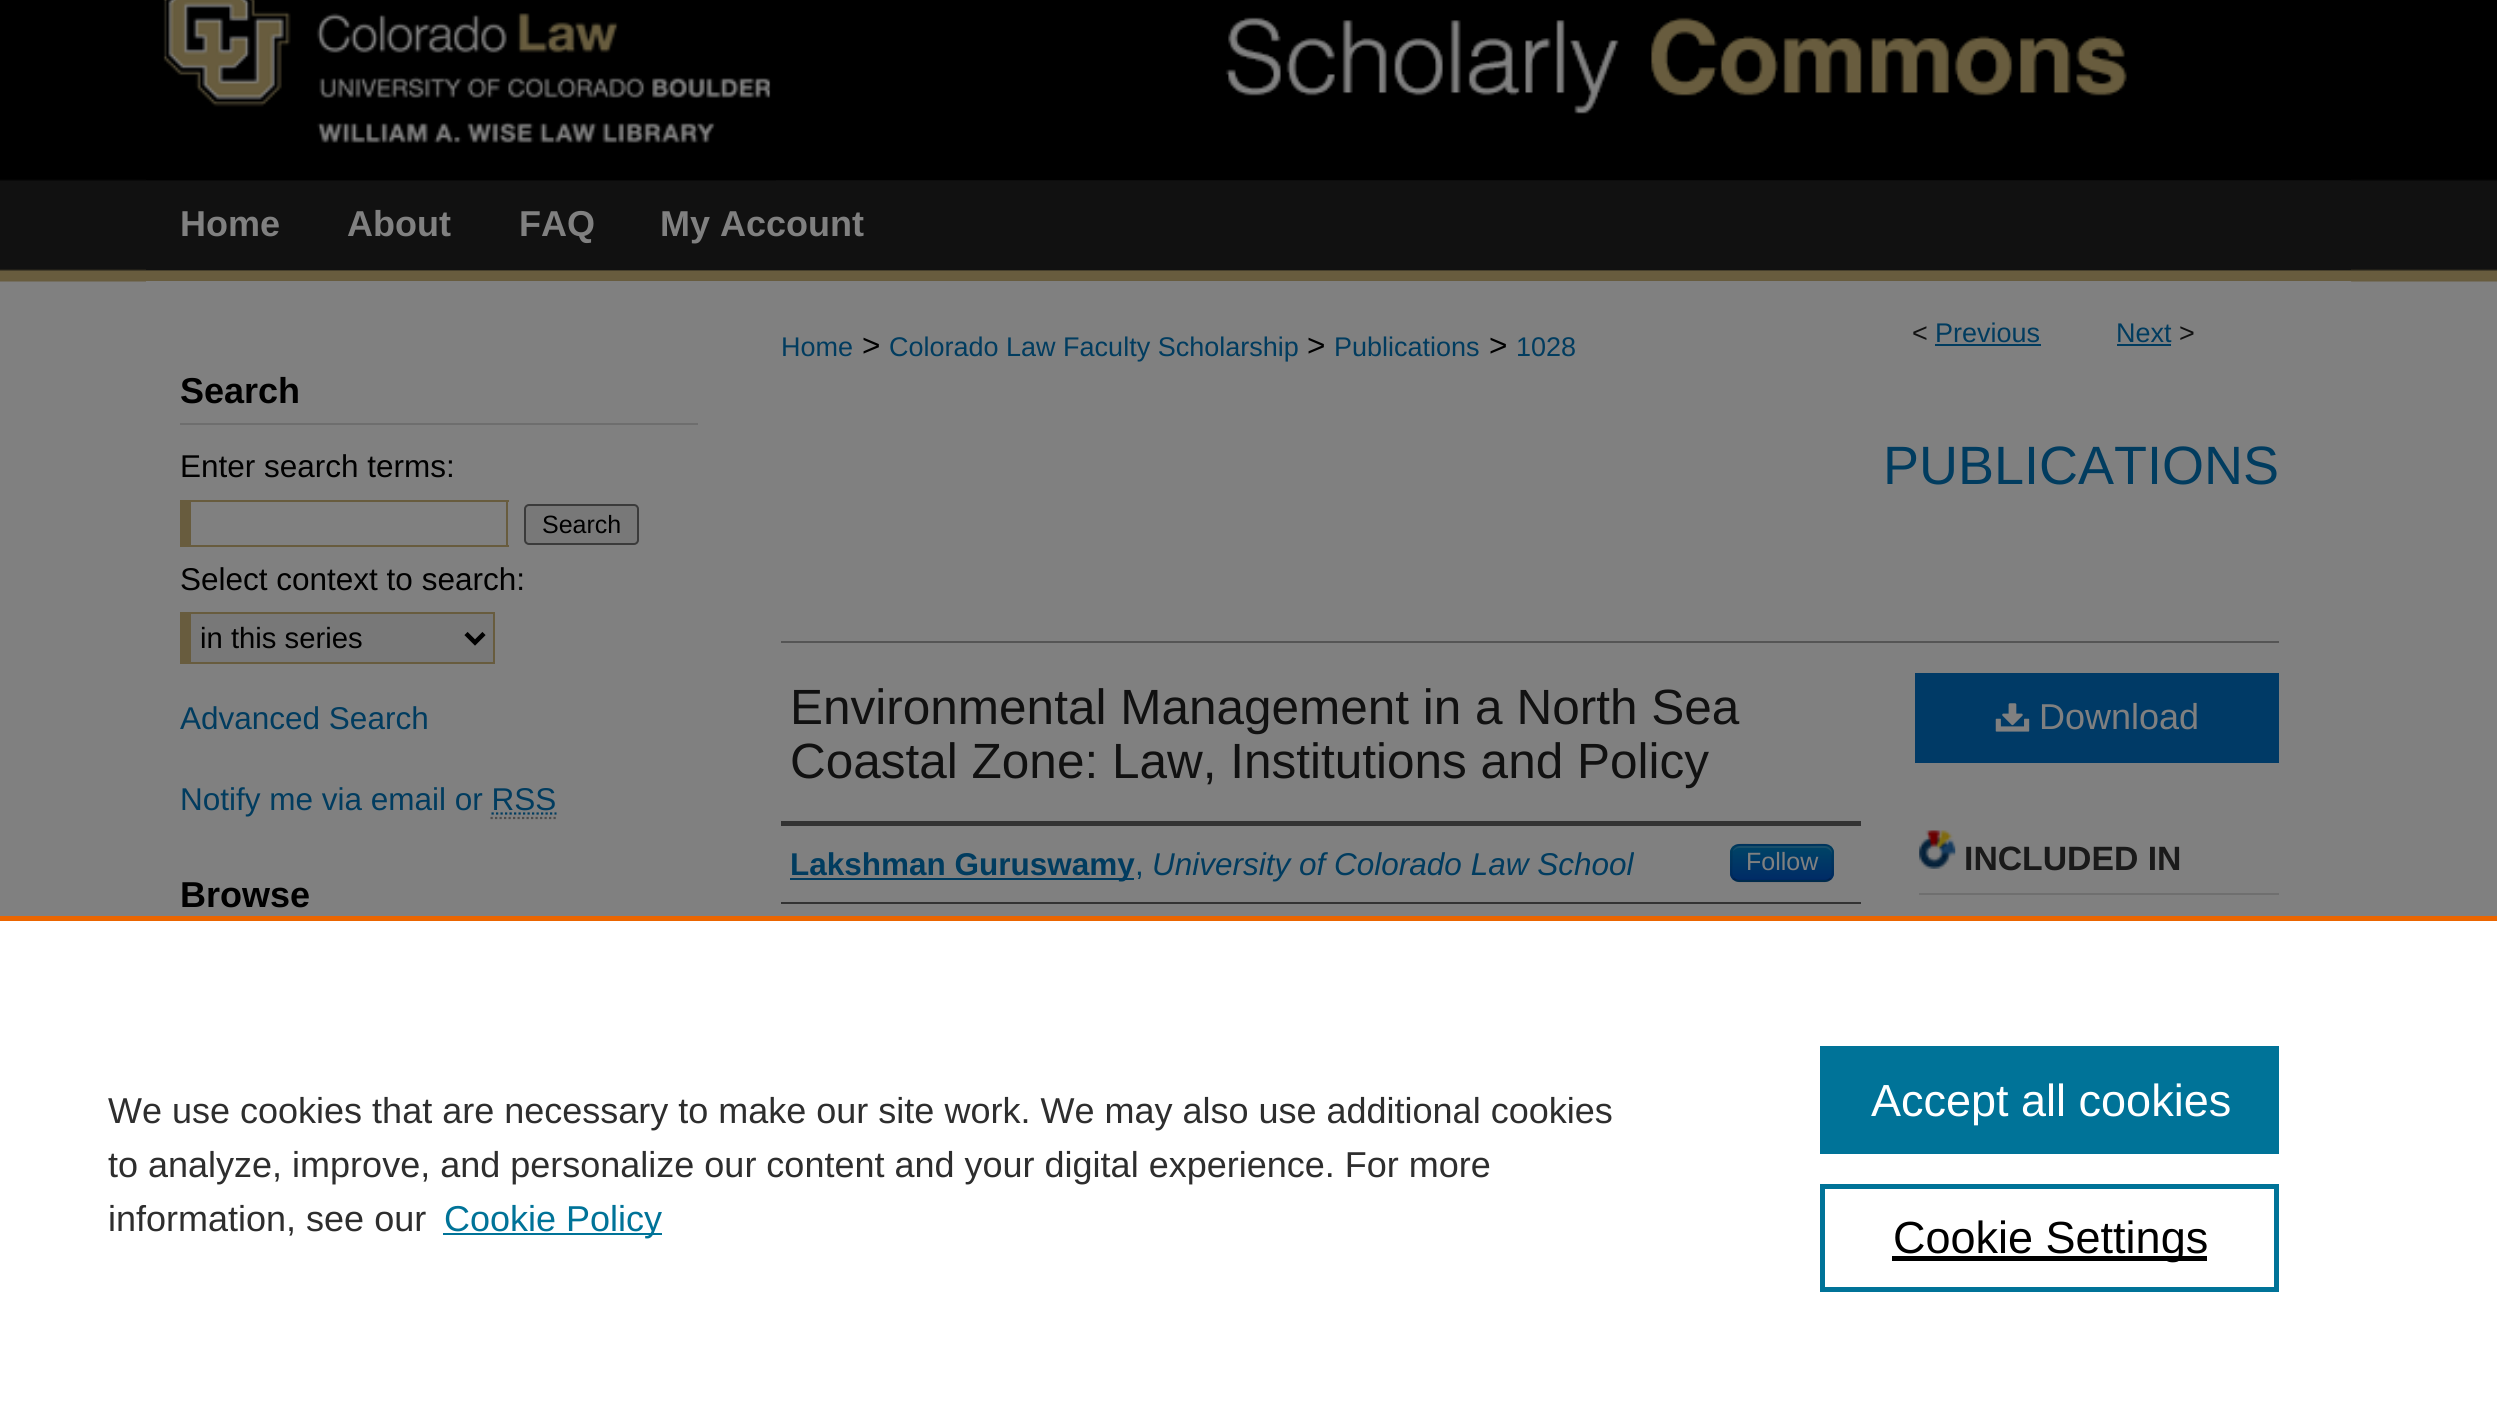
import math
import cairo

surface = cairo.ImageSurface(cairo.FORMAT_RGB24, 2497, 1410)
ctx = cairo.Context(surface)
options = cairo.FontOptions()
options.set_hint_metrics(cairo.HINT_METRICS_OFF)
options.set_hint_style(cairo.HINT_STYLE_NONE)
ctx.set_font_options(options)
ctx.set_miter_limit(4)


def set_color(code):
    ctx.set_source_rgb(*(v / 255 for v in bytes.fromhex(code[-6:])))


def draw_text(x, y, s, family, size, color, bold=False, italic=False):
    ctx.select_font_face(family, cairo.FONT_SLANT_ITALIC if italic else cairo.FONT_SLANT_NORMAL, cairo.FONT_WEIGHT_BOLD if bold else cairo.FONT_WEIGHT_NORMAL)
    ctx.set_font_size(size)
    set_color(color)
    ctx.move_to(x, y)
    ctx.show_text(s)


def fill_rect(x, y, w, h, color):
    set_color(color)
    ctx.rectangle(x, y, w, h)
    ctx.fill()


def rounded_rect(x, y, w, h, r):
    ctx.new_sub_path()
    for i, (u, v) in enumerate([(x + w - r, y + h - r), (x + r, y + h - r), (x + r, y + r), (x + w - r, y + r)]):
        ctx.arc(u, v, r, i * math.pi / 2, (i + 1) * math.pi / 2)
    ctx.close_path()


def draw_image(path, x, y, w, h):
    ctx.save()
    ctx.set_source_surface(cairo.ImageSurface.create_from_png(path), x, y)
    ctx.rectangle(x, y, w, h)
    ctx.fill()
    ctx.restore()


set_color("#808080")
ctx.paint()
draw_image("assets/img1.png", 0, 0, 2497, 282)
fill_rect(146, 180, 2205, 90, "#111111")
draw_image("assets/img2.png", 146, 0, 2205, 181)
draw_image("assets/img3.png", 146, 0, 630, 181)
draw_text(180, 236, "Home", "Liberation Sans", 36, "#808080", bold=True)
draw_text(347, 236, "About", "Liberation Sans", 36, "#808080", bold=True)
draw_text(519, 236, "FAQ", "Liberation Sans", 36, "#808080", bold=True)
draw_text(660, 236, "My Account", "Liberation Sans", 36, "#808080", bold=True)
fill_rect(146, 281, 2205, 1, "#808080")
fill_rect(2351, 281, 1, 1, "#757063")
fill_rect(180, 423, 518, 2, "#6e6e6e")
draw_text(180, 403, "Search", "Liberation Sans", 36, "#000000", bold=True)
draw_text(180, 477, "Enter search terms:", "Liberation Sans", 31.5, "#000000")
fill_rect(191, 500, 318, 2, "#685c3e")
fill_rect(506, 500, 2, 47, "#685c3e")
fill_rect(191, 545, 318, 2, "#685c3e")
fill_rect(180, 500, 11, 47, "#685c3e")
set_color("#787878")
rounded_rect(525, 505, 113, 39, 4)
ctx.fill_preserve()
set_color("#3b3b3b")
ctx.stroke()
draw_text(542, 533, "Search", "Liberation Sans", 25, "#000000")
draw_text(180, 590, "Select context to search:", "Liberation Sans", 31.5, "#000000")
fill_rect(191, 614, 302, 48, "#787878")
fill_rect(191, 612, 304, 2, "#685c3e")
fill_rect(493, 612, 2, 52, "#685c3e")
fill_rect(191, 662, 304, 2, "#685c3e")
fill_rect(180, 612, 11, 52, "#685c3e")
ctx.new_path()
ctx.move_to(466, 633.5)
ctx.line_to(475, 642.5)
ctx.line_to(484, 633.5)
set_color("#000000")
ctx.set_line_width(4.5)
ctx.stroke()
draw_text(200, 648, "in this series", "Liberation Sans", 29.25, "#000000")
draw_text(180, 729, "Advanced Search", "Liberation Sans", 31.5, "#013c5f")
draw_text(180, 810, "Notify me via email or RSS", "Liberation Sans", 31.5, "#013c5f")
ctx.new_path()
ctx.move_to(491.5, 813.5)
ctx.line_to(556.5, 813.5)
ctx.set_line_width(2.2)
ctx.set_dash([2.25, 2.25])
ctx.stroke()
ctx.new_path()
ctx.move_to(490.5, 818)
ctx.line_to(556, 818)
set_color("#4d4d4d")
ctx.stroke()
draw_text(180, 907, "Browse", "Liberation Sans", 36, "#000000", bold=True)
draw_text(1912, 342, "<", "Liberation Sans", 27, "#111111")
draw_text(1935, 342, "Previous", "Liberation Sans", 27, "#013c5f")
fill_rect(1935, 344, 106, 2, "#013c5f")
draw_text(2116, 342, "Next", "Liberation Sans", 27, "#013c5f")
fill_rect(2117, 344, 54, 2, "#013c5f")
draw_text(2179, 342, ">", "Liberation Sans", 27, "#111111")
draw_text(781, 356, "Home", "Liberation Sans", 27, "#013c5f")
draw_text(862, 356, ">", "Liberation Sans", 31.5, "#000000")
draw_text(889, 356, "Colorado Law Faculty Scholarship", "Liberation Sans", 27, "#013c5f")
draw_text(1307, 356, ">", "Liberation Sans", 31.5, "#000000")
draw_text(1334, 356, "Publications", "Liberation Sans", 27, "#013c5f")
draw_text(1489, 356, ">", "Liberation Sans", 31.5, "#000000")
draw_text(1516, 356, "1028", "Liberation Sans", 27, "#013c5f")
draw_text(1883, 484, "PUBLICATIONS", "Liberation Sans", 54, "#013c5f")
fill_rect(781, 641, 1498, 2, "#555555")
draw_text(790, 724, "Environmental Management in a North Sea", "Liberation Sans", 49.5, "#111111")
draw_text(790, 778, "Coastal Zone: Law, Institutions and Policy", "Liberation Sans", 49.5, "#111111")
fill_rect(781, 821, 1080, 5, "#333333")
fill_rect(781, 902, 1080, 2, "#333333")
fill_rect(790, 878, 344, 2, "#013c5f")
draw_text(790, 875, "Lakshman Guruswamy", "Liberation Sans", 31.5, "#013c5f", bold=True)
draw_text(1135, 875, ",", "Liberation Sans", 31.5, "#013c5f")
draw_text(1152, 875, "University of Colorado Law School", "Liberation Sans", 31.5, "#013c5f", italic=True)
set_color("#003a66")
rounded_rect(1730, 844, 104, 38, 9)
ctx.fill()
ctx.save()
rounded_rect(1730, 844, 104, 38, 9)
ctx.clip()
gradient = cairo.LinearGradient(1782, 846, 1782, 880)
gradient.add_color_stop_rgba(0, 0, 0.267, 0.4, 1)
gradient.add_color_stop_rgba(1, 0, 0.169, 0.4, 1)
ctx.set_source(gradient)
ctx.rectangle(1730, 846, 104, 34)
ctx.fill()
ctx.restore()
ctx.set_source_rgba(0.502, 0.502, 0.502, 0.2)
ctx.new_path()
ctx.move_to(1739, 848)
ctx.line_to(1825, 848)
ctx.curve_to(1828, 848, 1832, 851, 1832, 855)
ctx.line_to(1832, 853)
ctx.curve_to(1832, 849, 1829, 846, 1825, 846)
ctx.line_to(1740, 846)
ctx.curve_to(1737, 846, 1734, 848, 1733, 851)
ctx.curve_to(1735, 849, 1737, 848, 1739, 848)
ctx.close_path()
ctx.fill()
ctx.new_path()
ctx.move_to(1830.5, 878.5)
ctx.curve_to(1829, 880, 1827, 881, 1825, 881)
ctx.line_to(1739, 881)
ctx.curve_to(1737, 881, 1735, 880, 1733.5, 878.5)
ctx.set_source_rgba(0, 0, 0, 0.25)
ctx.set_dash([])
ctx.stroke()
ctx.new_path()
ctx.move_to(1733.5, 878.5)
ctx.curve_to(1730, 874.5, 1731.5, 867.5, 1731.5, 863)
ctx.line_to(1731.5, 851)
ctx.curve_to(1733.5, 842, 1748, 845, 1753.5, 845)
ctx.line_to(1810.5, 845)
ctx.curve_to(1816, 845, 1830.5, 842, 1832.5, 851)
ctx.line_to(1832.5, 863)
ctx.curve_to(1832.5, 867.5, 1834, 874.5, 1830.5, 878.5)
ctx.set_source_rgba(0, 0, 0, 0.1)
ctx.stroke()
draw_text(1746, 870, "Follow", "Liberation Sans", 25, "#808080")
fill_rect(1915, 673, 364, 90, "#003a66")
draw_image("assets/img4.png", 1995, 703, 35, 29)
draw_text(2039, 729, "Download", "Liberation Sans", 36, "#808080")
draw_image("assets/img5.png", 1919, 830, 37, 39)
fill_rect(1919, 893, 360, 2, "#6f6f6f")
draw_text(1964, 870, "INCLUDED IN", "Liberation Sans", 33.75, "#1a1a1a", bold=True)
fill_rect(0, 921, 2497, 489, "#ffffff")
fill_rect(0, 916, 2497, 5, "#eb6500")
draw_text(108, 1123, "We use cookies that are necessary to make our site work. We may also use additional cookies", "Liberation Sans", 36, "#2e2e2e")
draw_text(108, 1177, "to analyze, improve, and personalize our content and your digital experience. For more", "Liberation Sans", 36, "#2e2e2e")
draw_text(108, 1231, "information, see our", "Liberation Sans", 36, "#2e2e2e")
fill_rect(443, 1233, 219, 2, "#007398")
draw_text(444, 1231, "Cookie Policy", "Liberation Sans", 36, "#007398")
fill_rect(1820, 1046, 459, 108, "#007398")
draw_text(1871, 1116, "Accept all cookies", "Liberation Sans", 45, "#ffffff")
ctx.rectangle(1822.5, 1186.5, 454, 103)
set_color("#007398")
ctx.set_line_width(5)
ctx.stroke()
fill_rect(1892, 1256, 315, 5, "#000000")
draw_text(1893, 1253, "Cookie Settings", "Liberation Sans", 45, "#000000")
surface.write_to_png("output.png")
